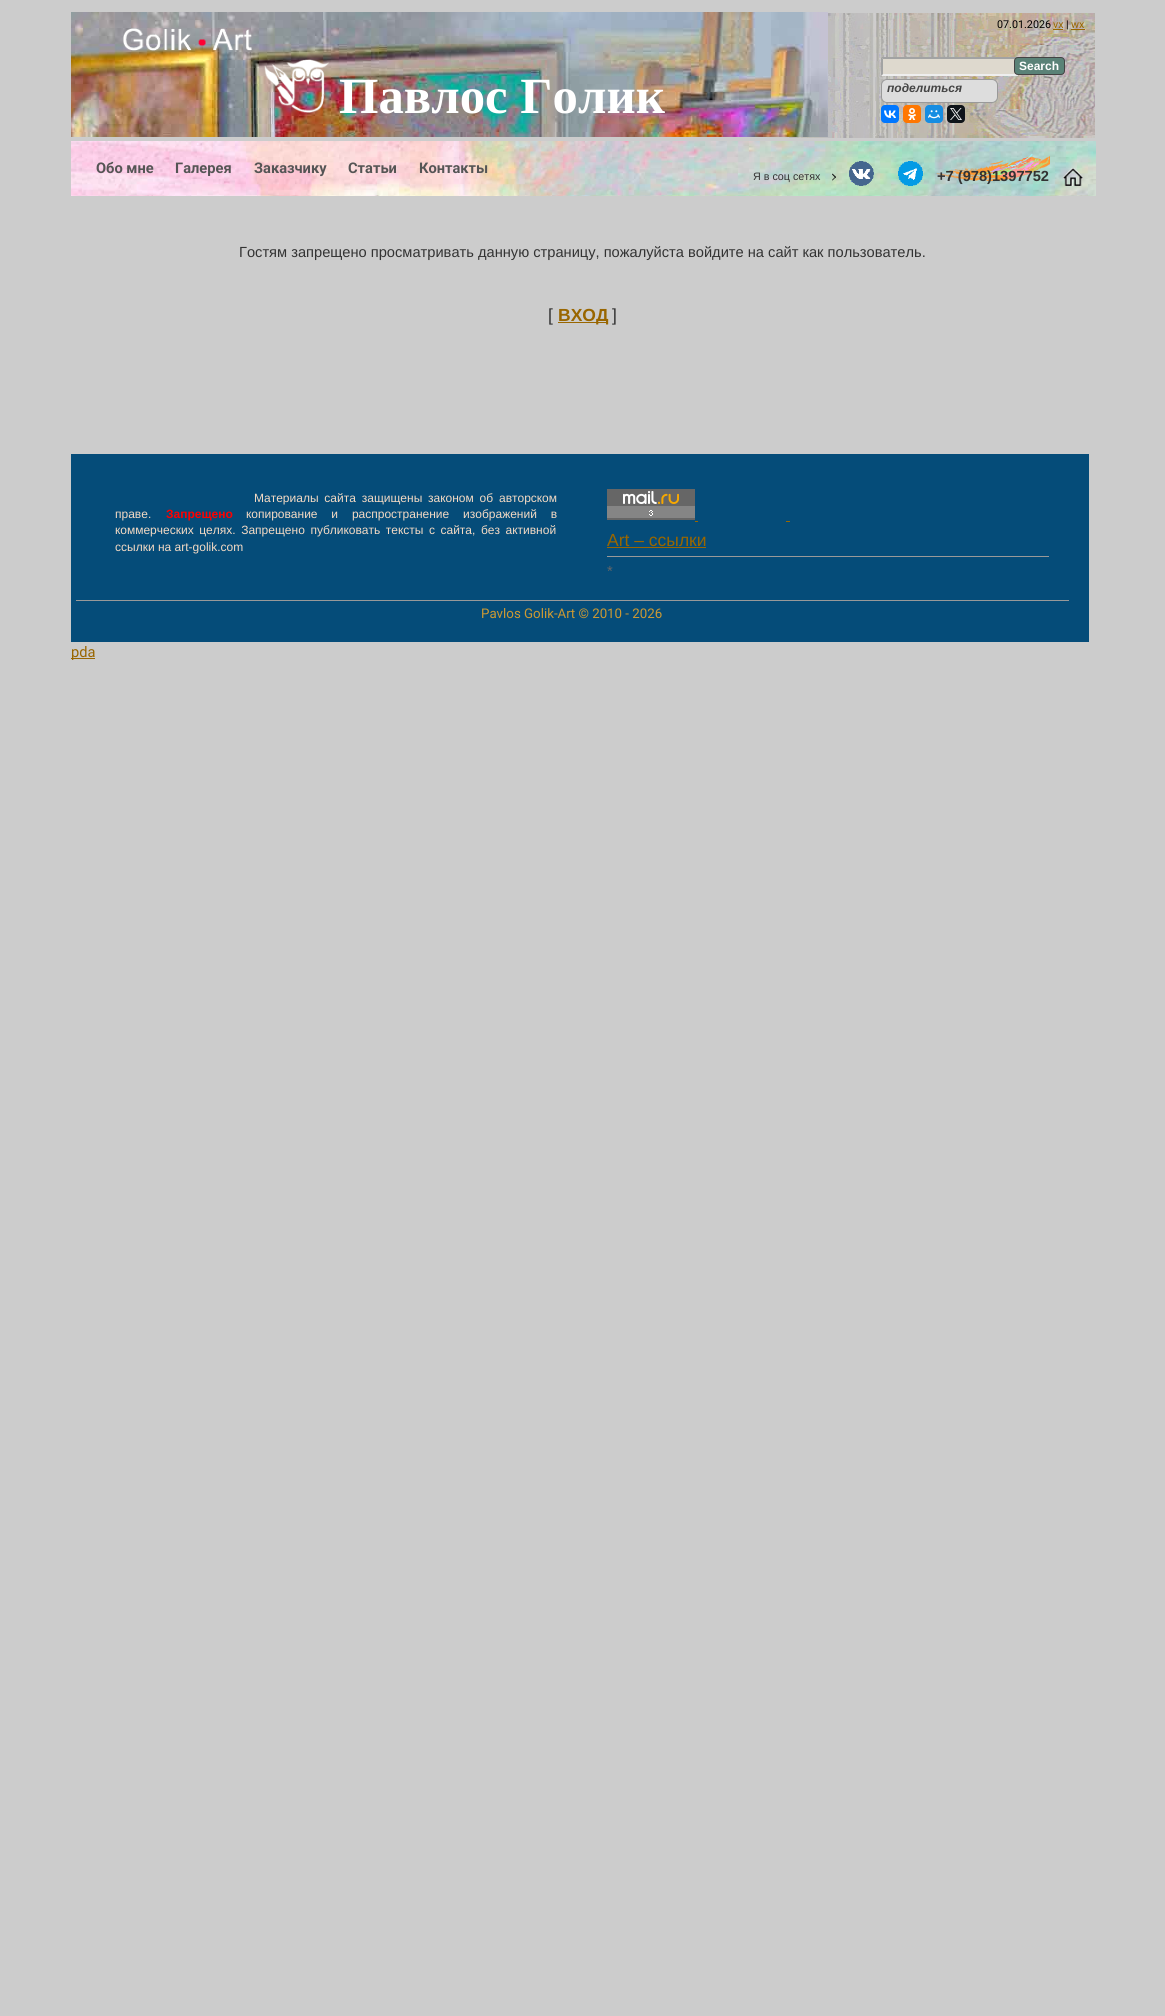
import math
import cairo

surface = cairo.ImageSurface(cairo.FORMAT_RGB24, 1165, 2016)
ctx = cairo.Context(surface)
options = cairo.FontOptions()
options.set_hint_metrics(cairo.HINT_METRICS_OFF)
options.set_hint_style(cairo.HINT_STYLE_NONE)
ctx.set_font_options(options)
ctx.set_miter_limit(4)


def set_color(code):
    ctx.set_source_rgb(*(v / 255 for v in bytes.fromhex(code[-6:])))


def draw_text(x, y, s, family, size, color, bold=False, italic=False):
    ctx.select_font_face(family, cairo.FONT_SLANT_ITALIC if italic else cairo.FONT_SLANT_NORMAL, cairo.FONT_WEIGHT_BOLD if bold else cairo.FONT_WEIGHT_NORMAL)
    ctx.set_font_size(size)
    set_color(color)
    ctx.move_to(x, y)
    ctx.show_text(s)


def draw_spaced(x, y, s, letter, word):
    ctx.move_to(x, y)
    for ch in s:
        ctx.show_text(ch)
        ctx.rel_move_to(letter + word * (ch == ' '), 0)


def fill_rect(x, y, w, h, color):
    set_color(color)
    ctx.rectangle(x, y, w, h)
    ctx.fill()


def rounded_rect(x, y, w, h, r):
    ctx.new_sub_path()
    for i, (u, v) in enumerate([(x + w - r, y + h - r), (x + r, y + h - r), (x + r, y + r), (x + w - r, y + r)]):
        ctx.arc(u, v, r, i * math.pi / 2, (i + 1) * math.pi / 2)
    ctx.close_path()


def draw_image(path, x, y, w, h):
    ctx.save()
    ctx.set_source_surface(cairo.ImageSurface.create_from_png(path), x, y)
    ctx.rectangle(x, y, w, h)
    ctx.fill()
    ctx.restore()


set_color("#cccccc")
ctx.paint()
draw_image("assets/img1.png", 767, 13, 328, 125)
draw_text(997, 28, "07.01.2026", "Roboto", 10.75, "#000000")
draw_text(1053, 28, "vx", "Roboto", 10.75, "#996600")
fill_rect(1053, 29, 10, 1, "#996600")
draw_text(1066, 28, "|", "Roboto", 10.75, "#000000")
draw_text(1071, 28, "wx", "Roboto", 10.75, "#996600")
fill_rect(1071, 29, 14, 1, "#996600")
fill_rect(881, 57, 137, 19, "#ded9ce")
set_color("#a2a3a3")
ctx.new_path()
ctx.move_to(881, 57)
ctx.line_to(1018, 57)
ctx.line_to(1016, 59)
ctx.line_to(883, 59)
ctx.close_path()
ctx.fill()
set_color("#eeeeee")
ctx.new_path()
ctx.move_to(1018, 76)
ctx.line_to(881, 76)
ctx.line_to(883, 74)
ctx.line_to(1016, 74)
ctx.close_path()
ctx.fill()
set_color("#a2a3a3")
ctx.new_path()
ctx.move_to(881, 76)
ctx.line_to(881, 57)
ctx.line_to(883, 59)
ctx.line_to(883, 74)
ctx.close_path()
ctx.fill()
set_color("#5a8277")
rounded_rect(1014.5, 57.5, 50, 17, 3.5)
ctx.fill_preserve()
set_color("#444444")
ctx.set_line_width(1)
ctx.stroke()
draw_text(1019, 70, "Search", "Liberation Sans", 12, "#ffffff", bold=True)
set_color("#dddddd")
rounded_rect(881.5, 79.5, 116, 23, 5.5)
ctx.fill_preserve()
set_color("#999999")
ctx.stroke()
draw_text(887, 92, "поделиться", "Liberation Sans", 12, "#444444", bold=True, italic=True)
set_color("#0077ff")
rounded_rect(881, 105, 18, 18, 4)
ctx.fill()
draw_image("assets/img2.png", 884, 110, 12, 8)
set_color("#ff7700")
rounded_rect(903, 105, 18, 18, 4)
ctx.fill()
draw_image("assets/img3.png", 908, 108, 8, 12)
set_color("#168de2")
rounded_rect(925, 105, 18, 18, 4)
ctx.fill()
draw_image("assets/img4.png", 928, 110, 12, 9)
set_color("#0f1419")
rounded_rect(947, 105, 18, 18, 4)
ctx.fill()
draw_image("assets/img5.png", 950, 108, 12, 12)
ctx.set_source_rgba(0, 0, 0, 0.03)
ctx.rectangle(969, 105, 18, 18)
ctx.fill()
draw_image("assets/img6.png", 970, 112, 16, 4)
draw_image("assets/img7.png", 71, 12, 757, 125)
draw_image("assets/img8.png", 123, 28, 129, 23)
draw_image("assets/img9.png", 264, 59, 65, 54)
draw_text(339, 113, "Павлос Голик", "Liberation Serif", 50.75, "#ffffff", bold=True)
draw_image("assets/img10.png", 71, 141, 1025, 55)
draw_text(96, 173, "Обо мне", "Roboto", 14.65, "#555555", bold=True)
draw_text(175, 173, "Галерея", "Roboto", 14.65, "#555555", bold=True)
draw_text(254, 173, "Заказчику", "Roboto", 14.65, "#555555", bold=True)
draw_text(348, 173, "Статьи", "Roboto", 14.65, "#555555", bold=True)
draw_text(419, 173, "Контакты", "Roboto", 14.65, "#555555", bold=True)
draw_text(753, 180, "Я в соц сетях", "Liberation Sans", 10.75, "#333333")
set_color("#111111")
ctx.new_path()
ctx.move_to(832.5, 173.5)
ctx.line_to(836, 177)
ctx.line_to(835.5, 178)
ctx.line_to(832, 174.5)
ctx.close_path()
ctx.fill()
ctx.new_path()
ctx.move_to(835.5, 176.5)
ctx.line_to(836, 177)
ctx.line_to(832.5, 180.5)
ctx.line_to(832, 180)
ctx.close_path()
ctx.fill()
draw_image("assets/img11.png", 849, 161, 25, 25)
draw_image("assets/img12.png", 898, 161, 25, 25)
draw_image("assets/img13.png", 936, 154, 114, 27)
draw_text(937, 181, "+7 (978)1397752", "Liberation Sans", 14.65, "#333333", bold=True)
draw_image("assets/img14.png", 1063, 168, 20, 18)
draw_text(239, 257, "Гостям запрещено просматривать данную страницу, пожалуйста войдите на сайт как пользователь.", "Liberation Sans", 14.65, "#333333")
draw_text(548, 321, "[", "Liberation Sans", 17.5, "#333333")
fill_rect(558, 322, 49, 1, "#996600")
draw_text(558, 321, "ВХОД", "Liberation Sans", 17.5, "#996600", bold=True)
draw_text(612, 321, "]", "Liberation Sans", 17.5, "#333333")
fill_rect(71, 454, 1018, 188, "#054c79")
ctx.set_font_size(12)
set_color("#f4dac4")
draw_spaced(254, 502, "Материалы сайта защищены законом об авторском", 0, 2.5)
draw_text(115, 518, "праве.", "Liberation Sans", 12, "#f4dac4")
draw_text(166, 518, "Запрещено", "Liberation Sans", 12, "#ff0000", bold=True)
ctx.select_font_face("Liberation Sans")
set_color("#f4dac4")
draw_spaced(246, 518, "копирование и распространение изображений в", 0, 10.5)
draw_spaced(115, 534, "коммерческих целях. Запрещено публиковать тексты с сайта, без активной", 0, 2.25)
draw_text(115, 551, "ссылки на art-golik.com", "Liberation Sans", 12, "#f4dac4")
draw_image("assets/img15.png", 607, 489, 88, 31)
fill_rect(695, 521, 3, 1, "#996600")
fill_rect(786, 521, 4, 1, "#996600")
draw_text(607, 546, "Art – ссылки", "Liberation Sans", 17.5, "#996600")
fill_rect(607, 547, 99, 1, "#996600")
fill_rect(607, 556, 442, 1, "#999999")
draw_text(607, 576, "*", "Liberation Sans", 14.65, "#666666")
fill_rect(76, 600, 993, 1, "#999999")
draw_text(481, 618, "Pavlos Golik-Art © 2010 - 2026", "Roboto", 13.3, "#cc9933")
fill_rect(71, 658, 24, 1, "#996600")
draw_text(71, 657, "pda", "Roboto", 14.65, "#996600")
surface.write_to_png("output.png")
